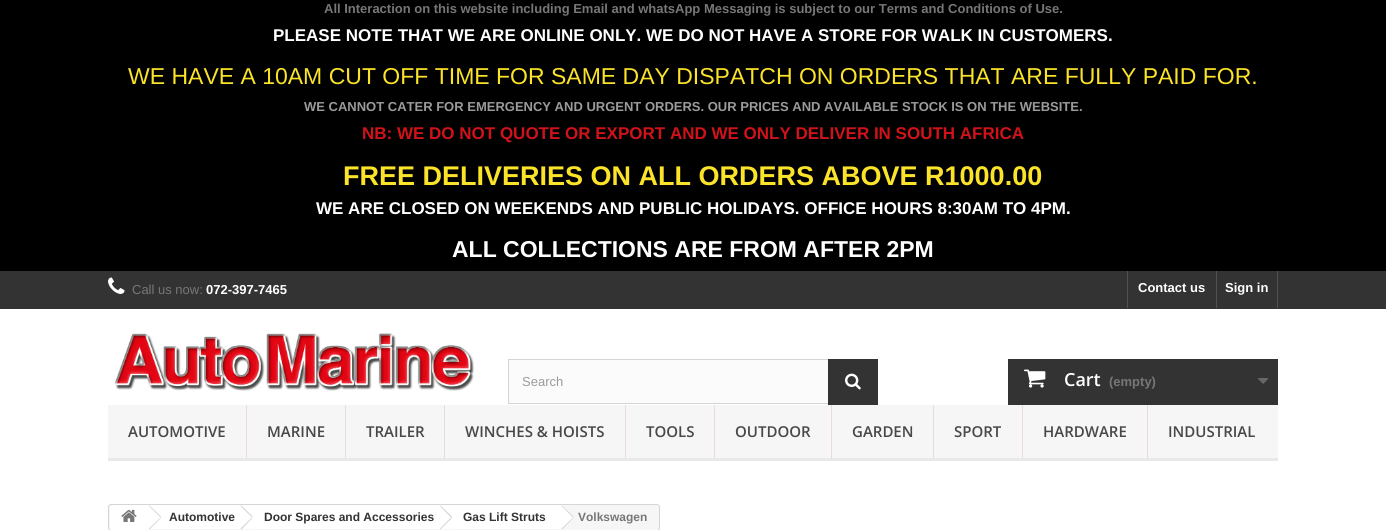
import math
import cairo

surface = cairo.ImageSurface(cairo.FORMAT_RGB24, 1386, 530)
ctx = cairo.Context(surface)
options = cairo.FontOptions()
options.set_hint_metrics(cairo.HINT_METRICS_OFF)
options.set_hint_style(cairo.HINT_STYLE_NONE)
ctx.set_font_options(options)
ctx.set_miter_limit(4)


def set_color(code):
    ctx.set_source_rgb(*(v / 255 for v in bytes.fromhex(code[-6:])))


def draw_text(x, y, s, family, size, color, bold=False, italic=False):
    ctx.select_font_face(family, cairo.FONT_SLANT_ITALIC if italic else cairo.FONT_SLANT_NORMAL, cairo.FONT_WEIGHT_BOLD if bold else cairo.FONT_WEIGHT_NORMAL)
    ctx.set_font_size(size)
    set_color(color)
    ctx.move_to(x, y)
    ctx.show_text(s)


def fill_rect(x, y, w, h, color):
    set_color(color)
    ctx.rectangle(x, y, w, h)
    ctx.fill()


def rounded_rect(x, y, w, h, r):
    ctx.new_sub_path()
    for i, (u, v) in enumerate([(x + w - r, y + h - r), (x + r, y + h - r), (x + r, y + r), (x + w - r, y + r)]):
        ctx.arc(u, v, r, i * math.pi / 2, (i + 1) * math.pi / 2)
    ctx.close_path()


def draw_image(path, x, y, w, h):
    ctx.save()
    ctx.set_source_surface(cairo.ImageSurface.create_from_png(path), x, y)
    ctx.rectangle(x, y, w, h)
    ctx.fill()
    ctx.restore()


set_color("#ffffff")
ctx.paint()
fill_rect(0, 0, 1386, 271, "#000000")
draw_text(324, 13, "All Interaction on this website including Email and whatsApp Messaging is subject to our Terms and Conditions of Use.", "Liberation Sans", 13, "#777777", bold=True)
draw_text(273, 41, "PLEASE NOTE THAT WE ARE ONLINE ONLY. WE DO NOT HAVE A STORE FOR WALK IN CUSTOMERS.", "Liberation Sans", 17, "#ffffff", bold=True)
draw_text(128, 84, "WE HAVE A 10AM CUT OFF TIME FOR SAME DAY DISPATCH ON ORDERS THAT ARE FULLY PAID FOR.", "Liberation Sans", 23, "#fbe329")
draw_text(304, 111, "WE CANNOT CATER FOR EMERGENCY AND URGENT ORDERS. OUR PRICES AND AVAILABLE STOCK IS ON THE WEBSITE.", "Liberation Sans", 13, "#9b9b9b", bold=True)
draw_text(362, 139, "NB: WE DO NOT QUOTE OR EXPORT AND WE ONLY DELIVER IN SOUTH AFRICA", "Liberation Sans", 17, "#d0121a", bold=True)
draw_text(343, 185, "FREE DELIVERIES ON ALL ORDERS ABOVE R1000.00", "Liberation Sans", 27, "#fbe329", bold=True)
draw_text(316, 214, "WE ARE CLOSED ON WEEKENDS AND PUBLIC HOLIDAYS. OFFICE HOURS 8:30AM TO 4PM.", "Liberation Sans", 17, "#ffffff", bold=True)
draw_text(452, 257, "ALL COLLECTIONS ARE FROM AFTER 2PM", "Liberation Sans", 23, "#ffffff", bold=True)
fill_rect(0, 271, 1386, 38, "#333333")
draw_image("assets/img1.png", 108, 277, 17, 17)
draw_text(132, 294, "Call us now:", "Liberation Sans", 13, "#777777")
draw_text(206, 294, "072-397-7465", "Liberation Sans", 13, "#ffffff", bold=True)
fill_rect(1127, 271, 1, 37, "#515151")
draw_text(1138, 292, "Contact us", "Liberation Sans", 13, "#ffffff", bold=True)
fill_rect(1277, 271, 1, 37, "#515151")
fill_rect(1216, 271, 1, 37, "#515151")
draw_text(1225, 292, "Sign in", "Liberation Sans", 13, "#ffffff", bold=True)
draw_image("assets/img2.png", 115, 333, 359, 58)
fill_rect(509, 360, 319, 43, "#fbfbfb")
ctx.rectangle(508.5, 359.5, 369, 44)
set_color("#d6d4d4")
ctx.set_line_width(1)
ctx.stroke()
draw_text(522, 386, "Search", "Liberation Sans", 13, "#9b9b9b")
fill_rect(828, 359, 50, 46, "#333333")
draw_image("assets/img3.png", 845, 373, 16, 17)
fill_rect(1008, 359, 270, 46, "#333333")
draw_image("assets/img4.png", 1024, 369, 22, 19)
draw_text(1064, 386, "Cart", "Open Sans SemiBold", 18, "#ffffff")
draw_text(1109, 386, "(empty)", "Liberation Sans", 13, "#777777", bold=True)
draw_image("assets/img5.png", 1258, 378, 11, 6)
fill_rect(108, 405, 1170, 53, "#f6f6f6")
fill_rect(108, 458, 1170, 3, "#e9e9e9")
fill_rect(246, 405, 1, 53, "#eadbdb")
draw_text(128, 437, "AUTOMOTIVE", "Open Sans SemiBold", 15, "#484848")
fill_rect(345, 405, 1, 53, "#eadbdb")
draw_text(267, 437, "MARINE", "Open Sans SemiBold", 15, "#484848")
fill_rect(444, 405, 1, 53, "#eadbdb")
draw_text(366, 437, "TRAILER", "Open Sans SemiBold", 15, "#484848")
fill_rect(625, 405, 1, 53, "#eadbdb")
draw_text(465, 437, "WINCHES & HOISTS", "Open Sans SemiBold", 15, "#484848")
fill_rect(714, 405, 1, 53, "#eadbdb")
draw_text(646, 437, "TOOLS", "Open Sans SemiBold", 15, "#484848")
fill_rect(831, 405, 1, 53, "#eadbdb")
draw_text(735, 437, "OUTDOOR", "Open Sans SemiBold", 15, "#484848")
fill_rect(933, 405, 1, 53, "#eadbdb")
draw_text(852, 437, "GARDEN", "Open Sans SemiBold", 15, "#484848")
fill_rect(1022, 405, 1, 53, "#eadbdb")
draw_text(954, 437, "SPORT", "Open Sans SemiBold", 15, "#484848")
fill_rect(1147, 405, 1, 53, "#eadbdb")
draw_text(1043, 437, "HARDWARE", "Open Sans SemiBold", 15, "#484848")
draw_text(1168, 437, "INDUSTRIAL", "Open Sans SemiBold", 15, "#484848")
set_color("#f6f6f6")
rounded_rect(108.5, 504.5, 551, 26, 2.5)
ctx.fill_preserve()
set_color("#d6d4d4")
ctx.stroke()
set_color("#ffffff")
ctx.new_path()
ctx.move_to(113, 505)
ctx.line_to(148, 505)
ctx.line_to(148, 530)
ctx.line_to(113, 530)
ctx.curve_to(111.5, 530, 110, 528.5, 110, 527)
ctx.line_to(110, 508)
ctx.curve_to(110, 506.5, 111.5, 505, 113, 505)
ctx.close_path()
ctx.fill()
draw_image("assets/img6.png", 121, 509, 16, 13)
fill_rect(148, 505, 94, 24, "#ffffff")
set_color("#d6d4d4")
ctx.new_path()
ctx.move_to(149.5, 505.5)
ctx.line_to(161, 516.5)
ctx.line_to(160.5, 517.5)
ctx.line_to(149, 506)
ctx.close_path()
ctx.fill()
ctx.new_path()
ctx.move_to(160.5, 517.5)
ctx.line_to(161, 518)
ctx.line_to(149.5, 529.5)
ctx.line_to(149, 528.5)
ctx.close_path()
ctx.fill()
draw_text(169, 521, "Automotive", "Liberation Sans", 12, "#333333", bold=True)
set_color("#ffffff")
ctx.new_path()
ctx.move_to(252, 506)
ctx.line_to(262, 516)
ctx.curve_to(263, 516.5, 263, 518, 262, 519)
ctx.line_to(252, 528.5)
ctx.curve_to(251.5, 529.5, 250, 529.5, 249.5, 528.5)
ctx.line_to(239.5, 519)
ctx.curve_to(238.5, 518, 238.5, 516.5, 239.5, 516)
ctx.line_to(249.5, 506)
ctx.curve_to(250, 505, 251.5, 505, 252, 506)
ctx.close_path()
ctx.fill()
fill_rect(242, 505, 199, 24, "#ffffff")
set_color("#d6d4d4")
ctx.new_path()
ctx.move_to(241.5, 505.5)
ctx.line_to(252.5, 516.5)
ctx.line_to(252, 517.5)
ctx.line_to(240.5, 506)
ctx.close_path()
ctx.fill()
ctx.new_path()
ctx.move_to(252, 517.5)
ctx.line_to(252.5, 518)
ctx.line_to(241.5, 529.5)
ctx.line_to(240.5, 528.5)
ctx.close_path()
ctx.fill()
draw_text(264, 521, "Door Spares and Accessories", "Liberation Sans", 12, "#333333", bold=True)
set_color("#ffffff")
ctx.new_path()
ctx.move_to(451, 506)
ctx.line_to(461, 516)
ctx.curve_to(462, 516.5, 462, 518, 461, 519)
ctx.line_to(451, 528.5)
ctx.curve_to(450.5, 529.5, 449, 529.5, 448.5, 528.5)
ctx.line_to(438.5, 519)
ctx.curve_to(437.5, 518, 437.5, 516.5, 438.5, 516)
ctx.line_to(448.5, 506)
ctx.curve_to(449, 505, 450.5, 505, 451, 506)
ctx.close_path()
ctx.fill()
fill_rect(441, 505, 119, 24, "#ffffff")
set_color("#d6d4d4")
ctx.new_path()
ctx.move_to(440.5, 505.5)
ctx.line_to(452, 516.5)
ctx.line_to(451, 517.5)
ctx.line_to(440, 506)
ctx.close_path()
ctx.fill()
ctx.new_path()
ctx.move_to(451, 517.5)
ctx.line_to(452, 518)
ctx.line_to(440.5, 529.5)
ctx.line_to(440, 528.5)
ctx.close_path()
ctx.fill()
draw_text(463, 521, "Gas Lift Struts", "Liberation Sans", 12, "#333333", bold=True)
set_color("#ffffff")
ctx.new_path()
ctx.move_to(563, 506)
ctx.line_to(573, 516)
ctx.curve_to(573.5, 516.5, 573.5, 518, 573, 519)
ctx.line_to(563, 528.5)
ctx.curve_to(562, 529.5, 561, 529.5, 560, 528.5)
ctx.line_to(550, 519)
ctx.curve_to(549.5, 518, 549.5, 516.5, 550, 516)
ctx.line_to(560, 506)
ctx.curve_to(561, 505, 562, 505, 563, 506)
ctx.close_path()
ctx.fill()
set_color("#d6d4d4")
ctx.new_path()
ctx.move_to(562, 505.5)
ctx.line_to(573.5, 516.5)
ctx.line_to(573, 517.5)
ctx.line_to(561.5, 506)
ctx.close_path()
ctx.fill()
ctx.new_path()
ctx.move_to(573, 517.5)
ctx.line_to(573.5, 518)
ctx.line_to(562, 529.5)
ctx.line_to(561.5, 528.5)
ctx.close_path()
ctx.fill()
draw_text(578, 521, "Volkswagen", "Liberation Sans", 12, "#777777", bold=True)
surface.write_to_png("output.png")
